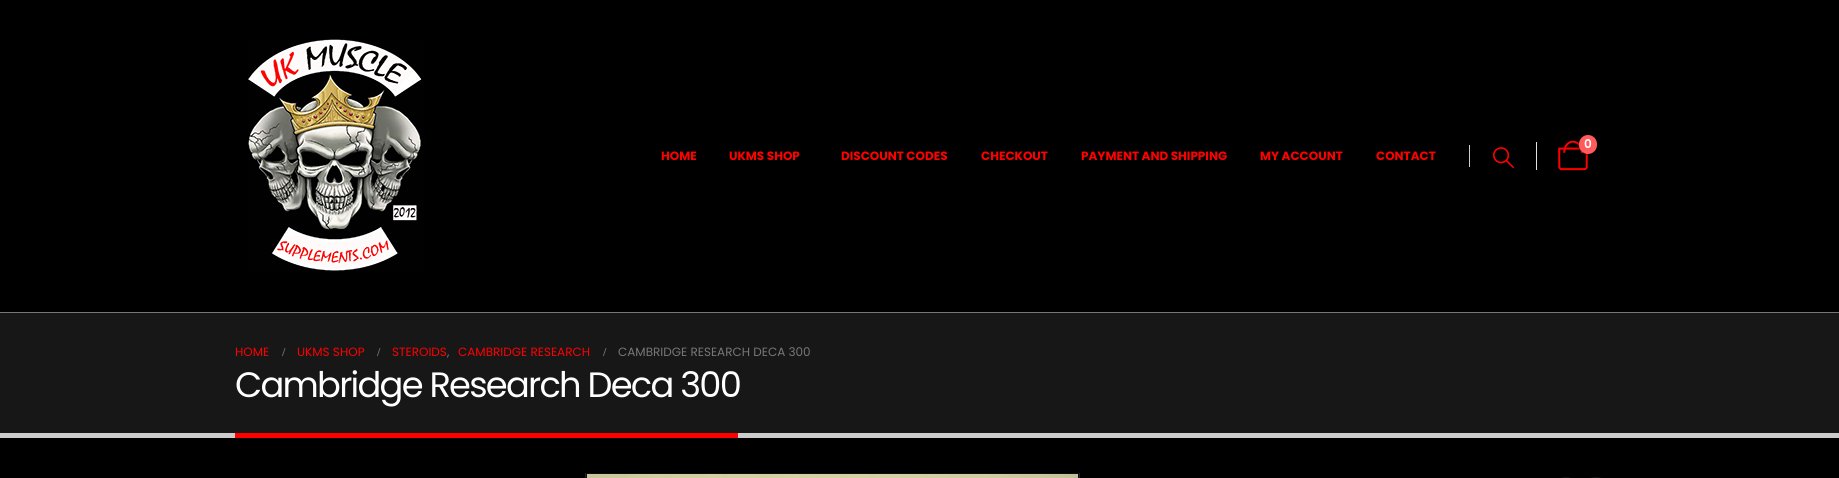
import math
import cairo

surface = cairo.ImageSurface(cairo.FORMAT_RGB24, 1839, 478)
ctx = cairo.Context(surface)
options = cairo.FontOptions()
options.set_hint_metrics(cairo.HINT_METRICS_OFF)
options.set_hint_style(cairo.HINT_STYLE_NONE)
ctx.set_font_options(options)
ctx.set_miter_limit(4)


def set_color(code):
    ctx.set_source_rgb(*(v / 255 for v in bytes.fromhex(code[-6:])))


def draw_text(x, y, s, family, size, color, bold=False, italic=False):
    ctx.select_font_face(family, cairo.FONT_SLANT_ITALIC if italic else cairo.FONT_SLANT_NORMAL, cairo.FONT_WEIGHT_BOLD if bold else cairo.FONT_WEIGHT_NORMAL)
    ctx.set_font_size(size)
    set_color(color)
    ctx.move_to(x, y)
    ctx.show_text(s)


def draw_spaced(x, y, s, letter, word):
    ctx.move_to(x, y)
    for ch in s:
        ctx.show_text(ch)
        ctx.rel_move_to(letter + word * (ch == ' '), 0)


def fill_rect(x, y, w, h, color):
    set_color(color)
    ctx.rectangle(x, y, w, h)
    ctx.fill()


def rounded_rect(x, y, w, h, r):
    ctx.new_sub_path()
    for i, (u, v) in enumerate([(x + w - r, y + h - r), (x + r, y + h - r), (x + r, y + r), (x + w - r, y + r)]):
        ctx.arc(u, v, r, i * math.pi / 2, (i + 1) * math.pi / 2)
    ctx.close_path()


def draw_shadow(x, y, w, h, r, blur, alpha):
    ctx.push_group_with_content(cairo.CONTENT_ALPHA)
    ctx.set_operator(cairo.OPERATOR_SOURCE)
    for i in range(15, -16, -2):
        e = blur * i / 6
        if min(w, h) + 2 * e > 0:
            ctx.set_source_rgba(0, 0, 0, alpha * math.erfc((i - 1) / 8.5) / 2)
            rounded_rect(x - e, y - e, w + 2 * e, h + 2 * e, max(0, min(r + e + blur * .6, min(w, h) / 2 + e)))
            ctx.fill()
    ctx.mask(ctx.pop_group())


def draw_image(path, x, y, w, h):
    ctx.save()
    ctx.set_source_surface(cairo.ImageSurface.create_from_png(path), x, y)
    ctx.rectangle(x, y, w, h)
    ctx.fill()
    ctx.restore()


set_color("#000000")
ctx.paint()
fill_rect(0, 312, 1839, 1, "#757575")
draw_image("assets/img1.png", 248, 39, 177, 232)
draw_text(661, 160, "HOME", "Poppins", 12, "#ff0000", bold=True)
draw_text(729, 160, "UKMS SHOP", "Poppins", 12, "#ff0000", bold=True)
draw_text(841, 160, "DISCOUNT CODES", "Poppins", 12, "#ff0000", bold=True)
draw_text(981, 160, "CHECKOUT", "Poppins", 12, "#ff0000", bold=True)
draw_text(1081, 160, "PAYMENT AND SHIPPING", "Poppins", 12, "#ff0000", bold=True)
draw_text(1260, 160, "MY ACCOUNT", "Poppins", 12, "#ff0000", bold=True)
draw_text(1376, 160, "CONTACT", "Poppins", 12, "#ff0000", bold=True)
fill_rect(1469, 145, 1, 22, "#cccccc")
draw_image("assets/img2.png", 1493, 147, 21, 22)
fill_rect(1536, 142, 1, 28, "#dee2e6")
draw_image("assets/img3.png", 1558, 140, 30, 31)
set_color("#000000")
draw_shadow(1578, 136, 18, 19, 9, 1, 0.3)
set_color("#ff5b5b")
rounded_rect(1579, 135, 18, 19, 9)
ctx.fill()
draw_text(1584, 148, "0", "Poppins SemiBold", 12, "#ffffff")
fill_rect(0, 313, 1839, 120, "#171717")
fill_rect(0, 433, 1839, 5, "#cccccc")
draw_text(235, 356, "HOME", "Poppins", 12, "#ff0000")
draw_text(282, 356, "/", "Liberation Serif", 12, "#777777", bold=True)
draw_text(297, 356, "UKMS SHOP", "Poppins", 12, "#ff0000")
draw_text(377, 356, "/", "Liberation Serif", 12, "#777777", bold=True)
draw_text(392, 356, "STEROIDS", "Poppins", 12, "#ff0000")
draw_text(447, 356, ",", "Poppins", 12, "#777777")
draw_text(458, 356, "CAMBRIDGE RESEARCH", "Poppins", 12, "#ff0000")
draw_text(603, 356, "/", "Liberation Serif", 12, "#777777", bold=True)
draw_text(618, 356, "CAMBRIDGE RESEARCH DECA 300", "Poppins", 12, "#777777")
ctx.set_font_size(35.25)
set_color("#ffffff")
draw_spaced(235, 397, "Cambridge Research Deca 300", -1.75, 0)
fill_rect(235, 433, 503, 5, "#ff0000")
fill_rect(585, 473, 495, 5, "#1d2127")
ctx.rectangle(586.5, 473.5, 492, 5)
set_color("#0d0d0d")
ctx.set_line_width(1)
ctx.stroke()
draw_image("assets/img4.png", 587, 474, 491, 4)
rounded_rect(1553, 478, 26, 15, 13)
set_color("#151515")
ctx.set_line_width(2)
ctx.stroke()
rounded_rect(1583, 478, 26, 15, 13)
ctx.stroke()
surface.write_to_png("output.png")
